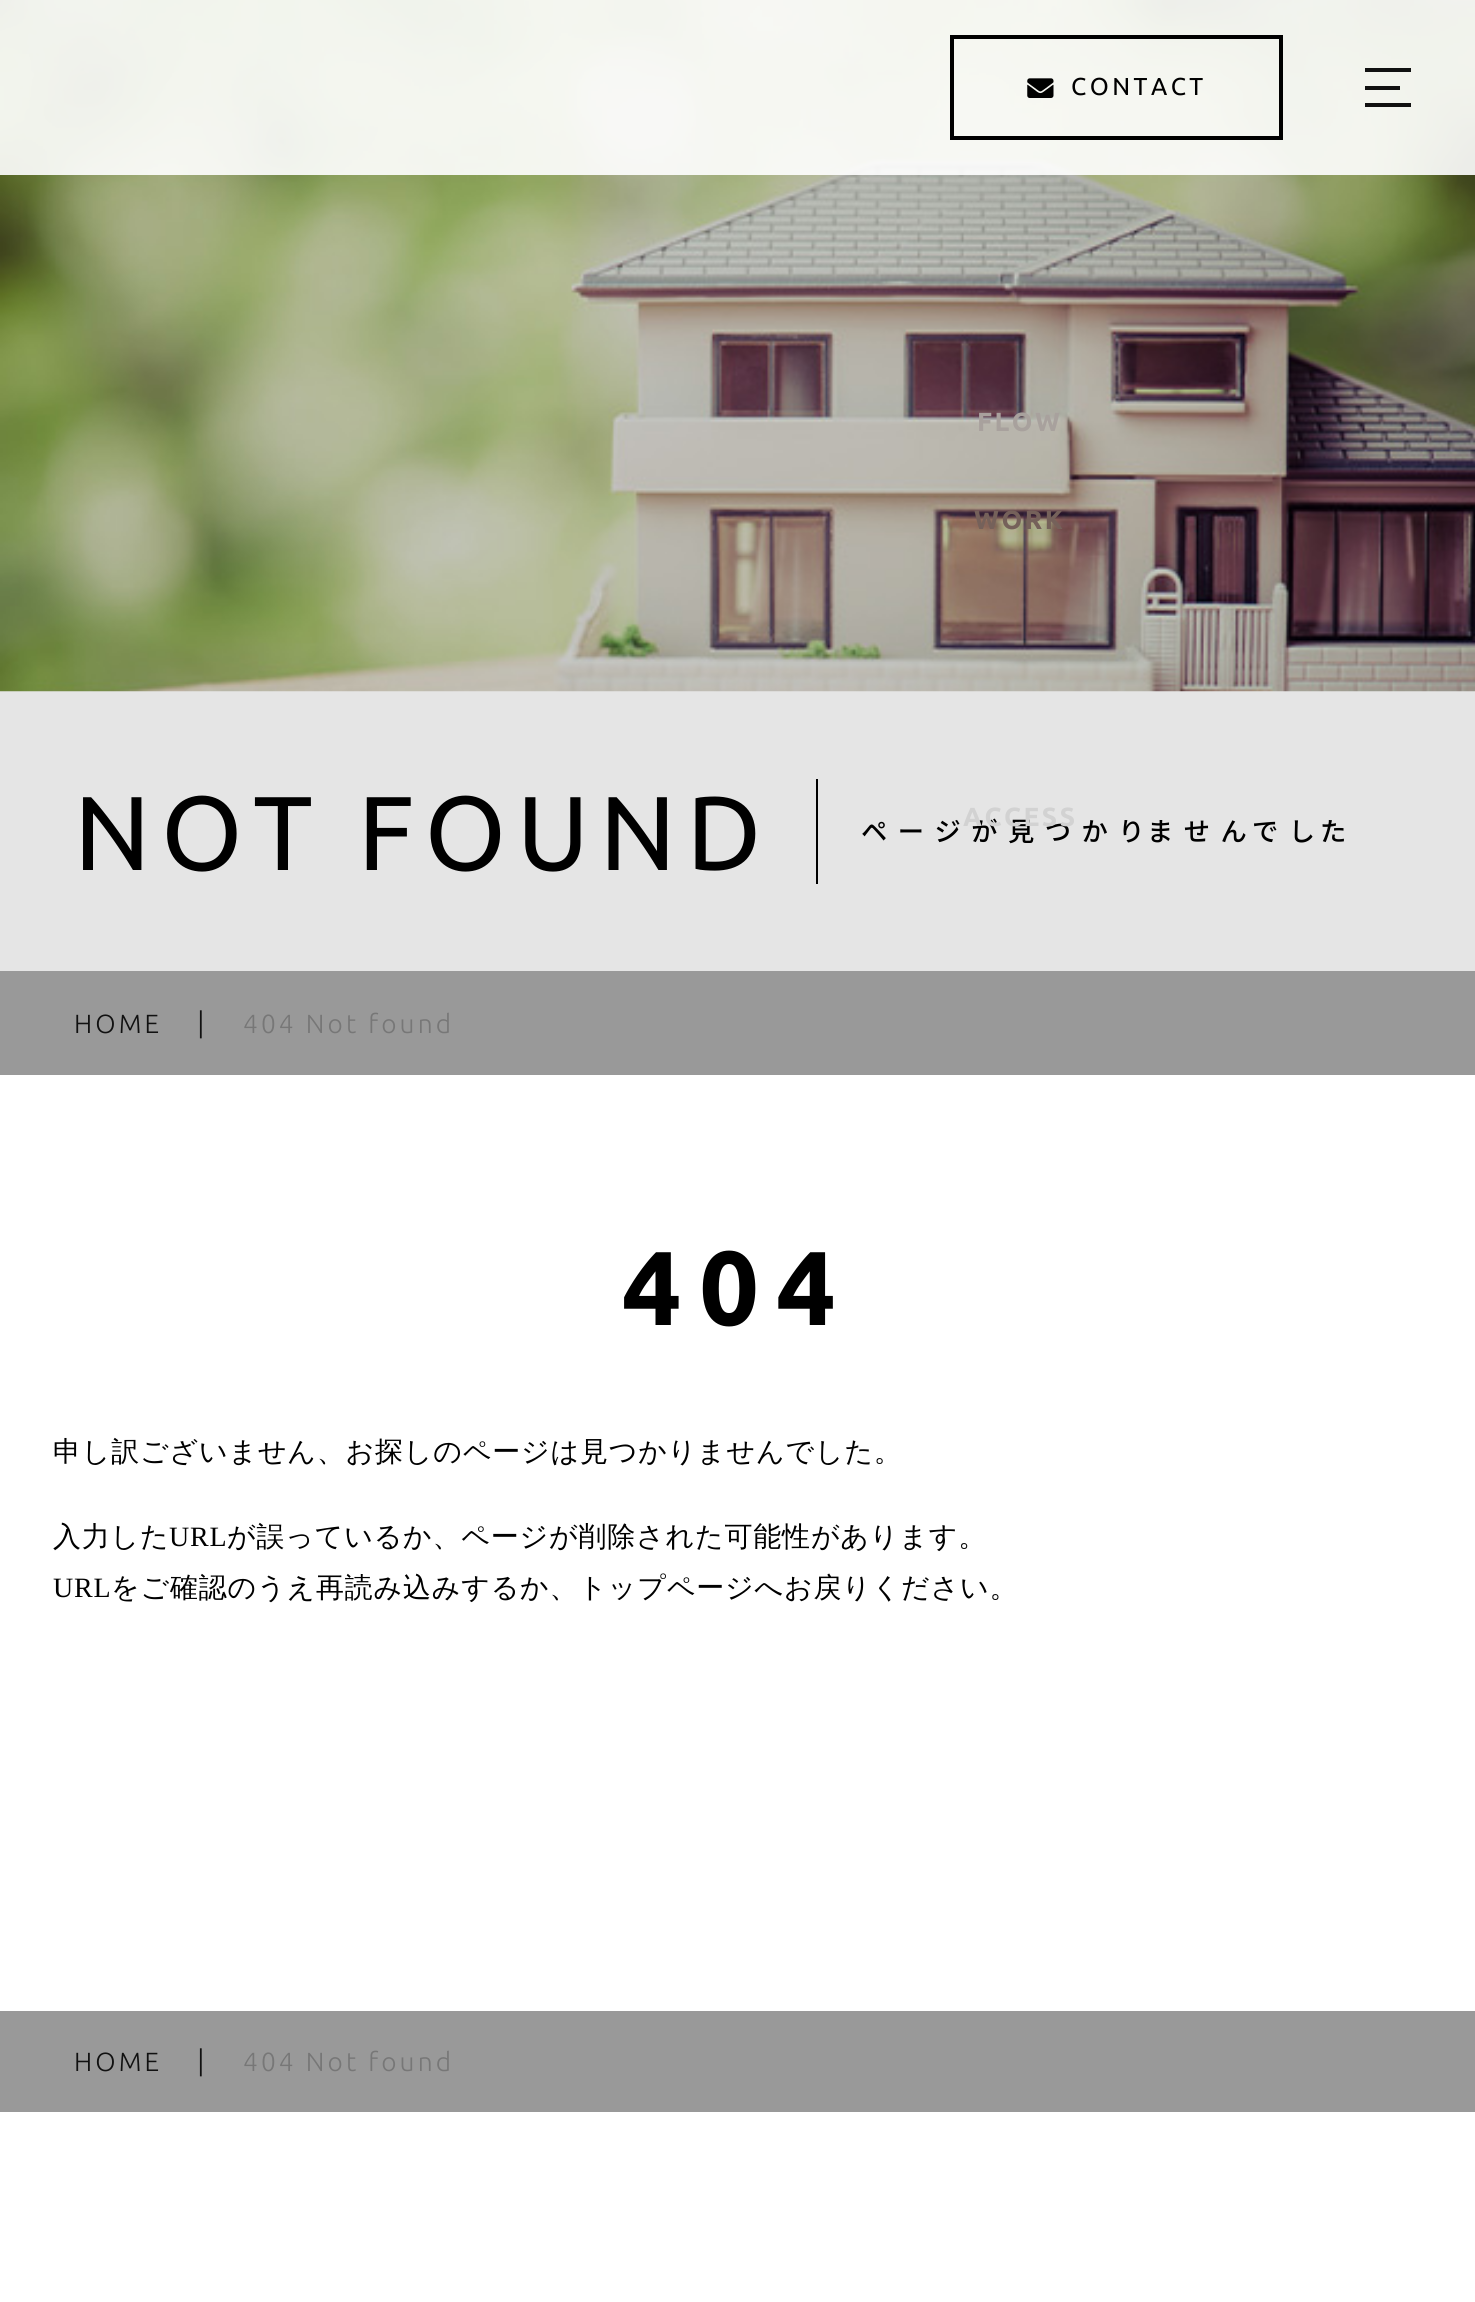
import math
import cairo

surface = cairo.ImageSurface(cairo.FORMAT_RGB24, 1475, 2302)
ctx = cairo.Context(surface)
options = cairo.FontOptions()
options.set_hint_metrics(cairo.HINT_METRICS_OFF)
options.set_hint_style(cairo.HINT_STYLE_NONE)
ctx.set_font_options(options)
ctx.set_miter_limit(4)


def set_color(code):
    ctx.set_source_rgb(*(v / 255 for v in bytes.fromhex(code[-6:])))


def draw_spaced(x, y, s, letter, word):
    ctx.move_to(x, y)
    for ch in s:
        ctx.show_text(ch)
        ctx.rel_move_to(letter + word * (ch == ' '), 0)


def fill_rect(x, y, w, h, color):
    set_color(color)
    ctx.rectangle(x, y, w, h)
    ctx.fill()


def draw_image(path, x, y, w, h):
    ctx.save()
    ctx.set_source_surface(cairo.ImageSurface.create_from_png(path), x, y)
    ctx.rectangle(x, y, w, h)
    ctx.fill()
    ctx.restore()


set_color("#ffffff")
ctx.paint()
fill_rect(0, 691, 1475, 280, "#e5e5e5")
draw_image("assets/img2.png", 0, 0, 1475, 692)
ctx.set_source_rgba(1, 1, 1, 0.9)
ctx.rectangle(0, 0, 1475, 175)
ctx.fill()
ctx.rectangle(952, 37, 329, 101)
set_color("#000000")
ctx.set_line_width(4)
ctx.stroke()
draw_image("assets/img1.png", 1027, 78, 27, 20)
ctx.select_font_face("Ubuntu")
ctx.set_font_size(24.5)
draw_spaced(1071, 95, "CONTACT", 3.5, 0)
fill_rect(1365, 68, 46, 4, "#111111")
fill_rect(1365, 86, 35, 4, "#111111")
fill_rect(1365, 103, 46, 4, "#111111")
ctx.select_font_face("Ubuntu", cairo.FONT_SLANT_NORMAL, cairo.FONT_WEIGHT_BOLD)
ctx.set_font_size(26.25)
set_color("#a8a19d")
draw_spaced(977, 431, "FLOW", 2.5, 0)
set_color("#75615a")
draw_spaced(974, 529, "WORK", 2.5, 0)
ctx.select_font_face("Noto Sans JP Medium")
set_color("#000000")
draw_spaced(861, 841, "ページが見つかり", 10.5, 0)
draw_spaced(1147, 841, "ません", 10.5, 0)
draw_spaced(1252, 841, "でし", 10.5, 0)
draw_spaced(1320, 841, "た", 10.5, 0)
ctx.select_font_face("Ubuntu", cairo.FONT_SLANT_NORMAL, cairo.FONT_WEIGHT_BOLD)
set_color("#d2d2d2")
draw_spaced(963, 826, "ACCESS", 2.5, 0)
fill_rect(816, 779, 2, 105, "#000000")
ctx.select_font_face("Ubuntu")
ctx.set_font_size(105)
draw_spaced(74, 870, "NOT FOUND", 10.5, 0)
fill_rect(0, 971, 1475, 104, "#999999")
ctx.select_font_face("Ubuntu Light")
ctx.set_font_size(26.25)
set_color("#111111")
draw_spaced(74, 1033, "HOME", 3.1, 0)
ctx.set_font_size(29)
draw_spaced(197, 1033, "|", 3.1, 0)
ctx.set_font_size(26.25)
set_color("#777777")
draw_spaced(243, 1033, "404 Not found", 3.1, 0)
ctx.select_font_face("Ubuntu", cairo.FONT_SLANT_NORMAL, cairo.FONT_WEIGHT_BOLD)
ctx.set_font_size(105)
set_color("#000000")
draw_spaced(622, 1325, "404", 17.5, 0)
ctx.select_font_face("WenQuanYi Zen Hei Medium")
ctx.set_font_size(28)
draw_spaced(53, 1461, "申し訳ございません、お探しのページは見つかりませんでした。", 0.8, 0)
draw_spaced(53, 1546, "入力した", 0.8, 0)
ctx.select_font_face("Liberation Serif")
draw_spaced(169, 1546, "URL", 0.8, 0)
ctx.select_font_face("WenQuanYi Zen Hei Medium")
draw_spaced(227, 1546, "が誤っているか、ページが削除された可能性があります。", 0.8, 0)
ctx.select_font_face("Liberation Serif")
draw_spaced(53, 1597, "URL", 0.8, 0)
ctx.select_font_face("WenQuanYi Zen Hei Medium")
draw_spaced(111, 1597, "をご確認のうえ再読み込みするか、トップページへお戻りください。", 0.8, 0)
fill_rect(0, 2011, 1475, 101, "#999999")
ctx.select_font_face("Ubuntu Light")
ctx.set_font_size(26.25)
set_color("#111111")
draw_spaced(74, 2071, "HOME", 3.1, 0)
ctx.set_font_size(29)
draw_spaced(197, 2071, "|", 3.1, 0)
ctx.set_font_size(26.25)
set_color("#777777")
draw_spaced(243, 2071, "404 Not found", 3.1, 0)
surface.write_to_png("output.png")
